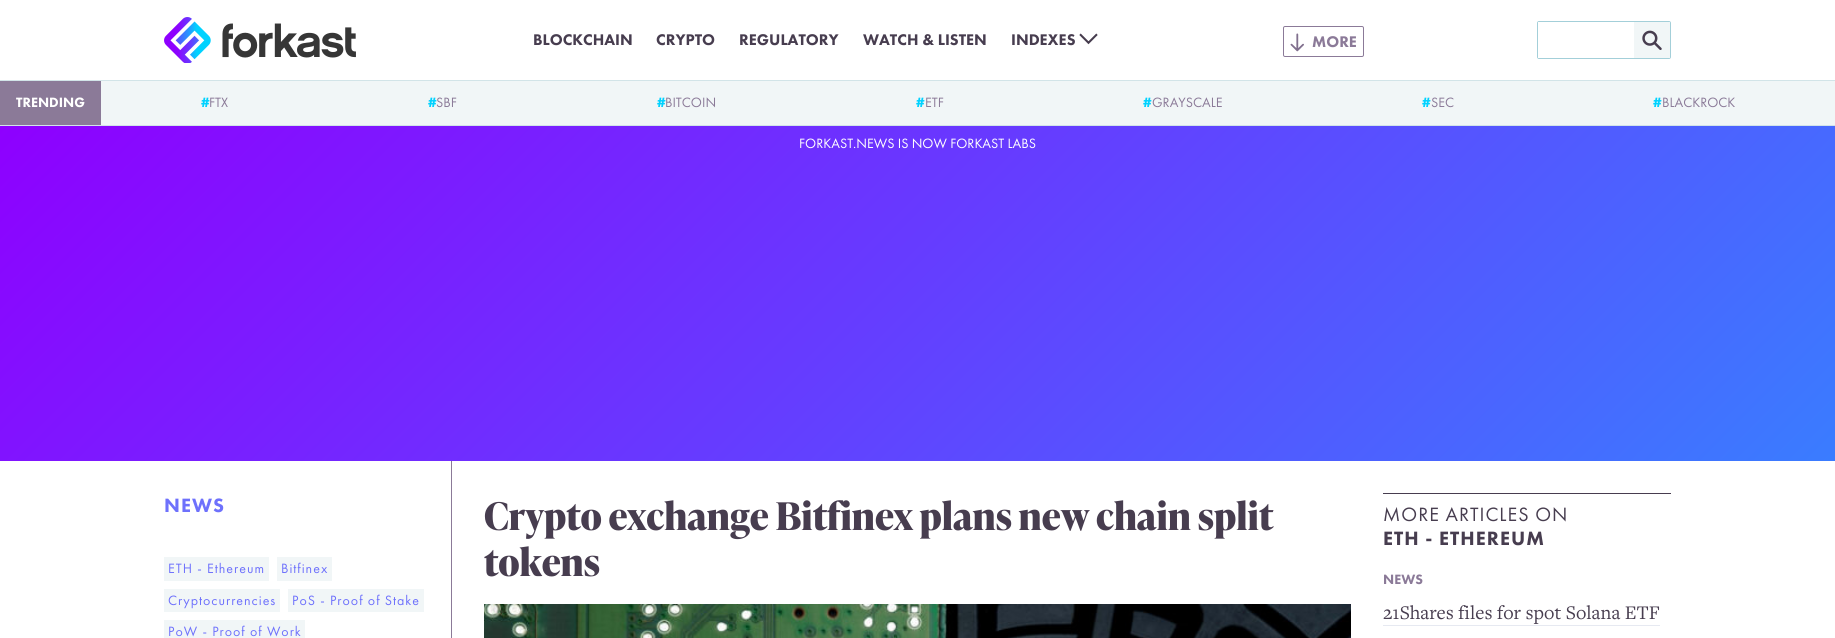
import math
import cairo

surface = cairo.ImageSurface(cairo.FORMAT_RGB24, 1835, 638)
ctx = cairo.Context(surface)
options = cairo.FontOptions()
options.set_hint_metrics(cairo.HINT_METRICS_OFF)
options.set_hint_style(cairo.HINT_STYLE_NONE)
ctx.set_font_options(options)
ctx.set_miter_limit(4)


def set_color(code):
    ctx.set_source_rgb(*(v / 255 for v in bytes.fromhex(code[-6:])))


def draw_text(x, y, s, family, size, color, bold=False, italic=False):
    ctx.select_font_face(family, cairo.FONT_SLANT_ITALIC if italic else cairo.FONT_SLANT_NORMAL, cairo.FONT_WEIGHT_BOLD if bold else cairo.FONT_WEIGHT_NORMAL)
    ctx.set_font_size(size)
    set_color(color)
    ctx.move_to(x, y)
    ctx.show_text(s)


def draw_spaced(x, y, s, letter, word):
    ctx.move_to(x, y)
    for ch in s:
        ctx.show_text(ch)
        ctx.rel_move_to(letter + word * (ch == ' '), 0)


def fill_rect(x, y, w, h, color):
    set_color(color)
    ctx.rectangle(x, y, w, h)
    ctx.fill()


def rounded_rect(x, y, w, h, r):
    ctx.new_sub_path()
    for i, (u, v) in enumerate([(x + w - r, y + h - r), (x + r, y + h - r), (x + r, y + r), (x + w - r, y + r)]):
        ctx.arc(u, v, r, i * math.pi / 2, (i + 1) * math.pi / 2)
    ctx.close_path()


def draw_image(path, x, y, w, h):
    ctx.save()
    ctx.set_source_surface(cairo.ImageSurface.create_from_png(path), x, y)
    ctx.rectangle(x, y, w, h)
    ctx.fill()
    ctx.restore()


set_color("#ffffff")
ctx.paint()
fill_rect(0, 80, 1835, 1, "#d2e4e8")
draw_image("assets/img1.png", 164, 17, 192, 46)
draw_text(533, 45, "BLOCKCHAIN", "Futura PT Black", 16, "#473d4f")
draw_text(656, 45, "CRYPTO", "Futura PT Black", 16, "#473d4f")
draw_text(739, 45, "REGULATORY", "Futura PT Black", 16, "#473d4f")
draw_text(863, 45, "WATCH & LISTEN", "Futura PT Black", 16, "#473d4f")
draw_text(1011, 45, "INDEXES", "Futura PT Black", 16, "#473d4f")
draw_image("assets/img2.png", 1079, 33, 19, 12)
draw_image("assets/img3.png", 1290, 33, 14, 19)
rounded_rect(1283.5, 26.5, 80, 30, 1.5)
set_color("#8b7a98")
ctx.set_line_width(1)
ctx.stroke()
draw_text(1312, 47, "MORE", "Futura PT Black", 16, "#8b7a98")
rounded_rect(1537.5, 21.5, 133, 37, 1.5)
set_color("#a3cfd9")
ctx.stroke()
fill_rect(1538, 22, 1, 36, "#ffffff")
fill_rect(1634, 22, 36, 36, "#f1f6f7")
draw_image("assets/img4.png", 1642, 30, 20, 20)
fill_rect(101, 81, 1734, 44, "#f1f6f7")
fill_rect(0, 125, 1835, 1, "#d2e4e8")
fill_rect(0, 81, 101, 44, "#8b7a98")
draw_text(16, 107, "TRENDING", "Futura PT Black", 14, "#ffffff")
draw_text(201, 107, "#", "Futura PT Black", 14, "#00d2ff")
draw_text(209, 107, "FTX", "Futura PT", 14, "#8b7a98")
draw_text(428, 107, "#", "Futura PT Black", 14, "#00d2ff")
draw_text(436, 107, "SBF", "Futura PT", 14, "#8b7a98")
draw_text(657, 107, "#", "Futura PT Black", 14, "#00d2ff")
draw_text(665, 107, "BITCOIN", "Futura PT", 14, "#8b7a98")
draw_text(916, 107, "#", "Futura PT Black", 14, "#00d2ff")
draw_text(925, 107, "ETF", "Futura PT", 14, "#8b7a98")
draw_text(1143, 107, "#", "Futura PT Black", 14, "#00d2ff")
draw_text(1152, 107, "GRAYSCALE", "Futura PT", 14, "#8b7a98")
draw_text(1422, 107, "#", "Futura PT Black", 14, "#00d2ff")
draw_text(1431, 107, "SEC", "Futura PT", 14, "#8b7a98")
draw_text(1653, 107, "#", "Futura PT Black", 14, "#00d2ff")
draw_text(1662, 107, "BLACKROCK", "Futura PT", 14, "#8b7a98")
gradient = cairo.LinearGradient(375, -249, 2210, 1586)
gradient.add_color_stop_rgba(0, 0.557, 0, 1, 1)
gradient.add_color_stop_rgba(1, 0, 0.824, 1, 1)
ctx.set_source(gradient)
ctx.rectangle(0, 126, 1835, 335)
ctx.fill()
draw_text(799, 148, "FORKAST.NEWS IS NOW FORKAST LABS", "Futura PT", 14, "#ffffff")
fill_rect(451, 461, 1, 177, "#8b7a98")
ctx.select_font_face("Futura PT Black")
ctx.set_font_size(20)
set_color("#6e71fc")
draw_spaced(164, 512, "NEWS", 1, 0)
fill_rect(164, 557, 105, 24, "#f1f6f7")
ctx.select_font_face("Futura PT")
ctx.set_font_size(14)
set_color("#6e71fc")
draw_spaced(168, 573, "ETH - Ethereum", 1, 0)
fill_rect(277, 557, 55, 24, "#f1f6f7")
set_color("#6e71fc")
draw_spaced(281, 573, "Bitfinex", 1, 0)
fill_rect(164, 589, 116, 23, "#f1f6f7")
set_color("#6e71fc")
draw_spaced(168, 605, "Cryptocurrencies", 1, 0)
fill_rect(288, 589, 136, 23, "#f1f6f7")
set_color("#6e71fc")
draw_spaced(292, 605, "PoS - Proof of Stake", 1, 0)
fill_rect(164, 620, 141, 18, "#f1f6f7")
set_color("#6e71fc")
draw_spaced(168, 636, "PoW - Proof of Work", 1, 0)
draw_text(484, 530, "Crypto exchange Bitfinex plans new chain split", "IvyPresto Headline", 38, "#473d4f", bold=True)
draw_text(484, 576, "tokens", "IvyPresto Headline", 38, "#473d4f", bold=True)
draw_image("assets/img5.png", 484, 604, 867, 34)
fill_rect(1383, 493, 288, 1, "#473d4f")
ctx.select_font_face("Futura PT")
ctx.set_font_size(20)
draw_spaced(1383, 521, "MORE ARTICLES ON", 1, 0)
ctx.select_font_face("Futura PT Black")
draw_spaced(1383, 545, "ETH - ETHEREUM", 1, 0)
draw_text(1383, 584, "NEWS", "Futura PT Black", 14, "#8b7a98")
draw_text(1383, 619, "21Shares files for spot Solana ETF", "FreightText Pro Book", 20, "#473d4f")
fill_rect(1383, 625, 277, 1, "#e6e9f1")
surface.write_to_png("output.png")
